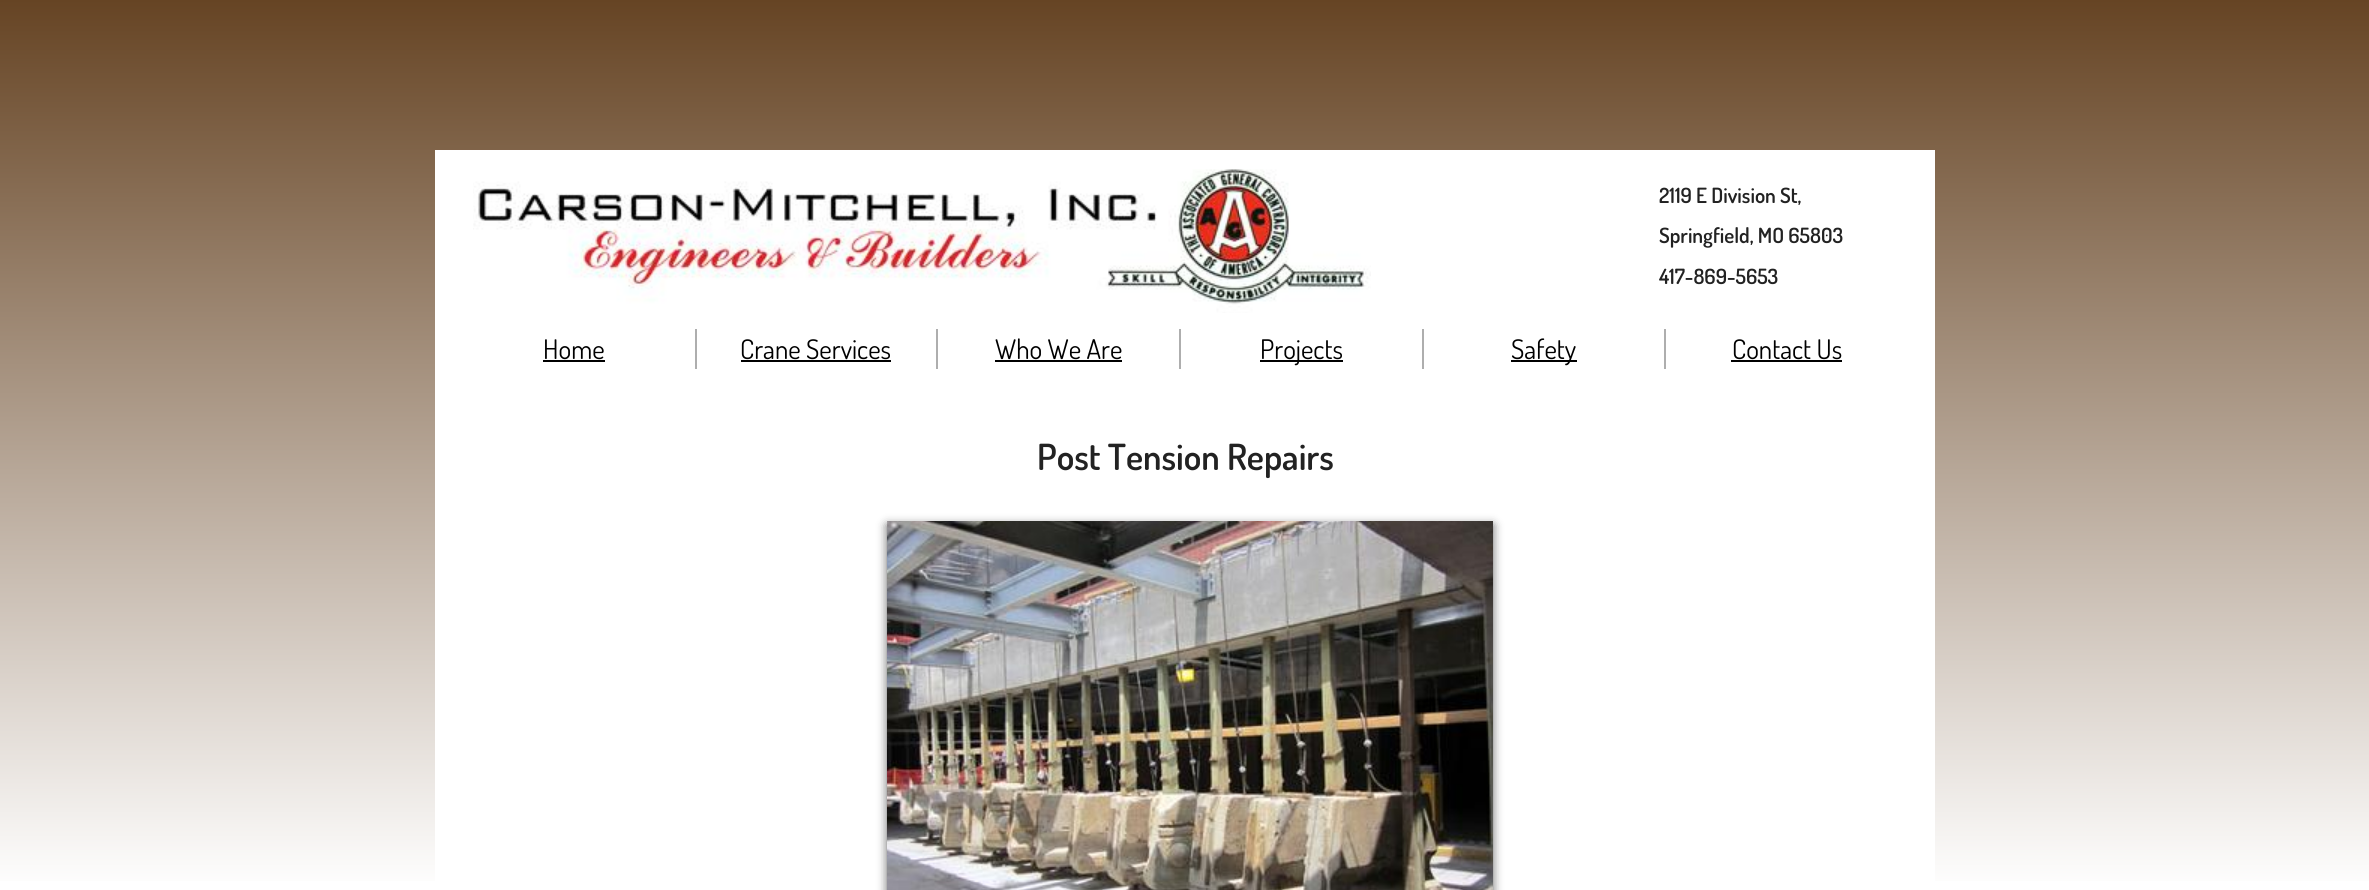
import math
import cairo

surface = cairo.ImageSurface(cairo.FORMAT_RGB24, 2369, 890)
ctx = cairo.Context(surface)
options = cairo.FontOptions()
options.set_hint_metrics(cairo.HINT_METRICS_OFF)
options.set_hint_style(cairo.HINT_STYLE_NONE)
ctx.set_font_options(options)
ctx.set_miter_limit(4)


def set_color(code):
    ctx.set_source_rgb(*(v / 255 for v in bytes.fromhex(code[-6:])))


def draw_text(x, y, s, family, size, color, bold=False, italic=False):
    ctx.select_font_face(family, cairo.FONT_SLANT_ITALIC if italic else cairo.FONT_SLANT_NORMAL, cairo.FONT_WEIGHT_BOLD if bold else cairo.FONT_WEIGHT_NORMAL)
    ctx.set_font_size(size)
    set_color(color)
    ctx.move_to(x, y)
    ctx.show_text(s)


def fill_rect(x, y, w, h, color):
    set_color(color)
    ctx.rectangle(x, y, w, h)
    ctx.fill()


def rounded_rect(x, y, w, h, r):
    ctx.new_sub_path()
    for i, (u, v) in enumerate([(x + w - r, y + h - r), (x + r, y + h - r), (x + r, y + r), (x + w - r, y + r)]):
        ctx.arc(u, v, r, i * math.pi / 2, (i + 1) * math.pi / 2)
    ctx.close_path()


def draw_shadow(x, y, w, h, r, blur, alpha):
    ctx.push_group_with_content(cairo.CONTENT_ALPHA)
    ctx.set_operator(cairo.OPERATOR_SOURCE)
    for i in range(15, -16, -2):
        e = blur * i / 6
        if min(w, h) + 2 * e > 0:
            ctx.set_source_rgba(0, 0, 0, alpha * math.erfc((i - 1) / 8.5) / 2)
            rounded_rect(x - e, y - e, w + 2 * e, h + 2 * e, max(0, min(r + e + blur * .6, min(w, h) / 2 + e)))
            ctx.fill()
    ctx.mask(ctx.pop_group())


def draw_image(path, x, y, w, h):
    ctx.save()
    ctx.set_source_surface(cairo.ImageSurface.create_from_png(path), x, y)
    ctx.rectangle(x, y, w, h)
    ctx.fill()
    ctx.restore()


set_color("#ffffff")
ctx.paint()
gradient = cairo.LinearGradient(1185, 0, 1185, 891)
gradient.add_color_stop_rgba(0, 0.4, 0.267, 0.141, 1)
gradient.add_color_stop_rgba(1, 1, 1, 1, 1)
ctx.set_source(gradient)
ctx.rectangle(0, 0, 2369, 881)
ctx.fill()
fill_rect(435, 150, 1500, 731, "#ffffff")
draw_image("assets/img1.png", 473, 169, 898, 144)
draw_text(1659, 203, "2119 E Division St,", "Dosis SemiBold", 21, "#222222")
draw_text(1659, 243, "Springfield, MO 65803", "Dosis SemiBold", 21, "#222222")
draw_text(1659, 284, "417-869-5653", "Dosis SemiBold", 21, "#222222")
fill_rect(695, 329, 2, 40, "#aeaeae")
draw_text(543, 359, "Home", "Dosis", 27, "#000000")
fill_rect(543, 360, 62, 2, "#000000")
fill_rect(936, 329, 2, 40, "#aeaeae")
draw_text(740, 359, "Crane Services", "Dosis", 27, "#000000")
fill_rect(741, 360, 150, 2, "#000000")
fill_rect(1179, 329, 2, 40, "#aeaeae")
draw_text(995, 359, "Who We Are", "Dosis", 27, "#000000")
fill_rect(995, 360, 127, 2, "#000000")
fill_rect(1422, 329, 2, 40, "#aeaeae")
fill_rect(1260, 360, 83, 2, "#000000")
draw_text(1260, 359, "Projects", "Dosis", 27, "#000000")
fill_rect(1664, 329, 2, 40, "#aeaeae")
fill_rect(1511, 360, 66, 2, "#000000")
draw_text(1511, 359, "Safety", "Dosis", 27, "#000000")
draw_text(1732, 359, "Contact Us", "Dosis", 27, "#000000")
fill_rect(1731, 360, 111, 2, "#000000")
draw_text(1037, 470, "Post Tension Repairs", "Dosis SemiBold", 36, "#222222")
set_color("#323232")
draw_shadow(887, 525, 606, 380, 0, 5, 0.75)
draw_image("assets/img2.png", 887, 521, 606, 369)
surface.write_to_png("output.png")
